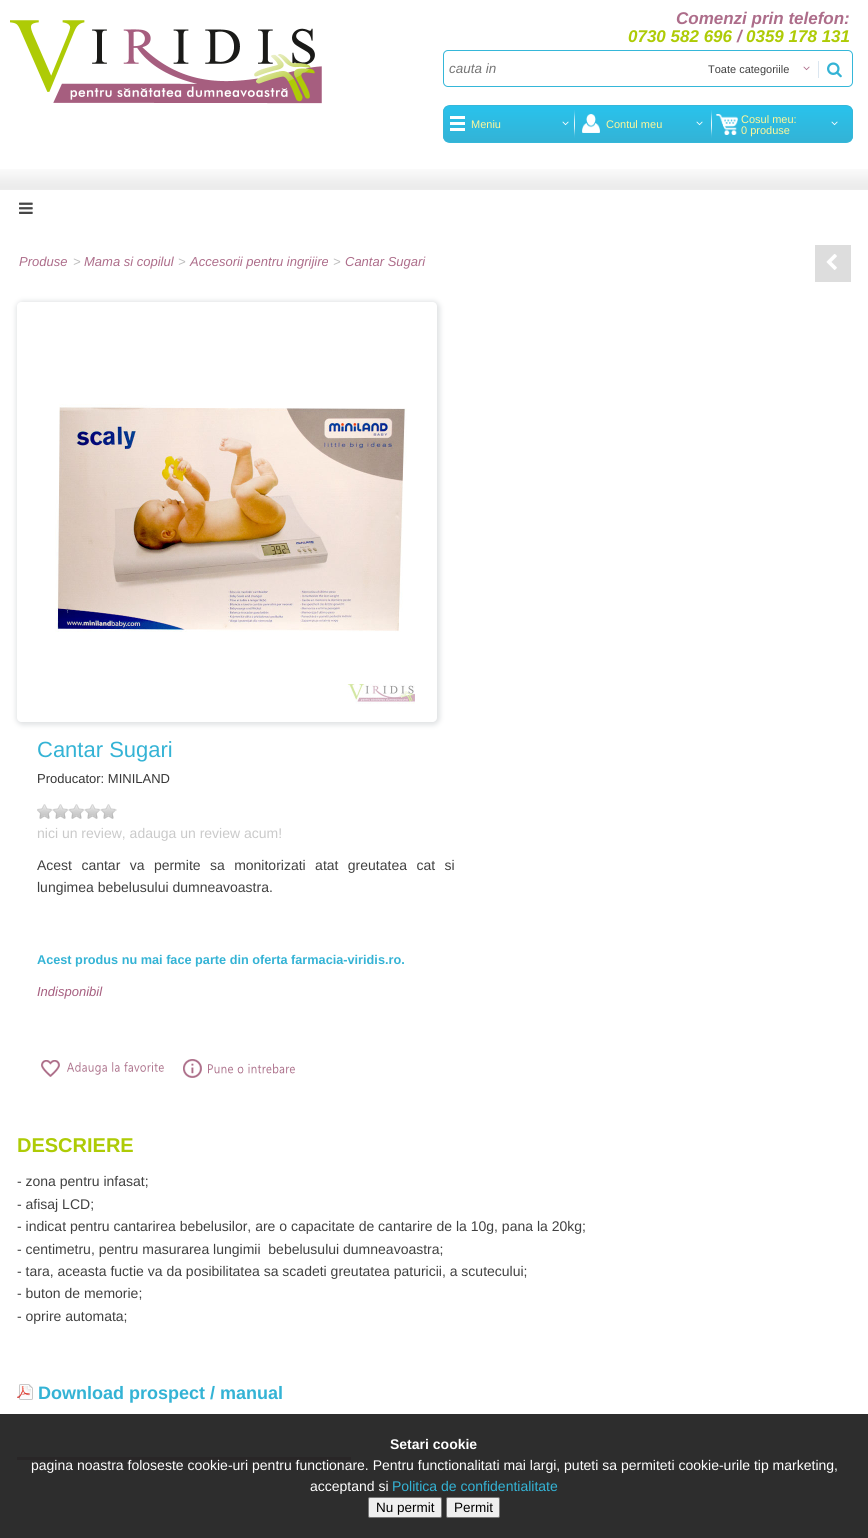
import math
import cairo

surface = cairo.ImageSurface(cairo.FORMAT_RGB24, 868, 1538)
ctx = cairo.Context(surface)
options = cairo.FontOptions()
options.set_hint_metrics(cairo.HINT_METRICS_OFF)
options.set_hint_style(cairo.HINT_STYLE_NONE)
ctx.set_font_options(options)
ctx.set_miter_limit(4)


def set_color(code):
    ctx.set_source_rgb(*(v / 255 for v in bytes.fromhex(code[-6:])))


def draw_text(x, y, s, family, size, color, bold=False, italic=False):
    ctx.select_font_face(family, cairo.FONT_SLANT_ITALIC if italic else cairo.FONT_SLANT_NORMAL, cairo.FONT_WEIGHT_BOLD if bold else cairo.FONT_WEIGHT_NORMAL)
    ctx.set_font_size(size)
    set_color(color)
    ctx.move_to(x, y)
    ctx.show_text(s)


def draw_spaced(x, y, s, letter, word):
    ctx.move_to(x, y)
    for ch in s:
        ctx.show_text(ch)
        ctx.rel_move_to(letter + word * (ch == ' '), 0)


def fill_rect(x, y, w, h, color):
    set_color(color)
    ctx.rectangle(x, y, w, h)
    ctx.fill()


def rounded_rect(x, y, w, h, r):
    ctx.new_sub_path()
    for i, (u, v) in enumerate([(x + w - r, y + h - r), (x + r, y + h - r), (x + r, y + r), (x + w - r, y + r)]):
        ctx.arc(u, v, r, i * math.pi / 2, (i + 1) * math.pi / 2)
    ctx.close_path()


def draw_shadow(x, y, w, h, r, blur, alpha):
    ctx.push_group_with_content(cairo.CONTENT_ALPHA)
    ctx.set_operator(cairo.OPERATOR_SOURCE)
    for i in range(15, -16, -2):
        e = blur * i / 6
        if min(w, h) + 2 * e > 0:
            ctx.set_source_rgba(0, 0, 0, alpha * math.erfc((i - 1) / 8.5) / 2)
            rounded_rect(x - e, y - e, w + 2 * e, h + 2 * e, max(0, min(r + e + blur * .6, min(w, h) / 2 + e)))
            ctx.fill()
    ctx.mask(ctx.pop_group())


def draw_image(path, x, y, w, h):
    ctx.save()
    ctx.set_source_surface(cairo.ImageSurface.create_from_png(path), x, y)
    ctx.rectangle(x, y, w, h)
    ctx.fill()
    ctx.restore()


set_color("#ffffff")
ctx.paint()
draw_image("assets/img1.png", 0, 169, 868, 21)
draw_image("assets/img2.png", 10, 20, 312, 84)
draw_text(676, 24, "Comenzi prin telefon:", "Liberation Sans", 17, "#ad6d8a", bold=True, italic=True)
draw_text(628, 42, "0730 582 696", "Liberation Sans", 17, "#aecb06", bold=True, italic=True)
draw_text(737, 42, "/", "Liberation Sans", 17, "#ad6d8a", bold=True, italic=True)
draw_text(746, 42, "0359 178 131", "Liberation Sans", 17, "#aecb06", bold=True, italic=True)
rounded_rect(443.5, 50.5, 409, 36, 4.5)
set_color("#35b7d9")
ctx.set_line_width(1)
ctx.stroke()
draw_text(449, 73, "cauta in", "Liberation Sans", 13.5, "#757575", italic=True)
draw_text(708, 73, "Toate categoriile", "Liberation Sans", 11, "#414141")
draw_image("assets/img3.png", 803, 66, 7, 5)
fill_rect(818, 61, 1, 17, "#dbe6f0")
draw_image("assets/img4.png", 827, 62, 15, 16)
ctx.save()
rounded_rect(443, 105, 410, 38, 7)
ctx.clip()
gradient = cairo.LinearGradient(648, 106, 648, 142)
gradient.add_color_stop_rgba(0, 0.161, 0.761, 0.925, 1)
gradient.add_color_stop_rgba(1, 0.2, 0.702, 0.839, 1)
ctx.set_source(gradient)
ctx.rectangle(443, 106, 410, 36)
ctx.fill()
ctx.restore()
rounded_rect(443.5, 105.5, 409, 37, 6.5)
set_color("#35b7d9")
ctx.stroke()
fill_rect(450, 128, 15, 3, "#ffffff")
fill_rect(450, 122, 15, 3, "#ffffff")
fill_rect(450, 116, 15, 3, "#ffffff")
draw_text(471, 128, "Meniu", "Liberation Sans", 11, "#fff799")
draw_image("assets/img5.png", 562, 121, 7, 5)
draw_image("assets/img6.png", 574, 110, 1, 28)
draw_image("assets/img7.png", 582, 114, 18, 19)
draw_text(606, 128, "Contul meu", "Liberation Sans", 11, "#fff799")
draw_image("assets/img5.png", 696, 121, 7, 5)
draw_image("assets/img6.png", 711, 110, 1, 28)
draw_image("assets/img8.png", 716, 114, 22, 21)
draw_text(741, 123, "Cosul meu:", "Liberation Sans", 11, "#fff799")
draw_text(741, 134, "0 produse", "Liberation Sans", 11, "#fff799")
draw_image("assets/img5.png", 831, 121, 7, 5)
fill_rect(0, 1414, 868, 124, "#2d2d2d")
draw_image("assets/img9.png", 19, 202, 14, 12)
draw_text(19, 266, "Produse", "Liberation Sans", 13, "#ad6d8a", italic=True)
draw_text(73, 266, ">", "Liberation Sans", 13, "#bcbcbc", italic=True)
draw_text(84, 266, "Mama si copilul", "Liberation Sans", 13, "#ad6d8a", italic=True)
draw_text(178, 266, ">", "Liberation Sans", 13, "#bcbcbc", italic=True)
draw_text(190, 266, "Accesorii pentru ingrijire", "Liberation Sans", 13, "#ad6d8a", italic=True)
draw_text(333, 266, ">", "Liberation Sans", 13, "#bcbcbc", italic=True)
draw_text(345, 266, "Cantar Sugari", "Liberation Sans", 13, "#ad6d8a", italic=True)
fill_rect(815, 245, 36, 37, "#dddddd")
draw_image("assets/img10.png", 826, 254, 11, 16)
ctx.save()
ctx.set_fill_rule(cairo.FILL_RULE_EVEN_ODD)
ctx.new_path()
ctx.move_to(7, 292)
ctx.line_to(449, 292)
ctx.line_to(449, 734)
ctx.line_to(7, 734)
ctx.close_path()
ctx.move_to(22, 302)
ctx.line_to(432, 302)
ctx.curve_to(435, 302, 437, 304, 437, 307)
ctx.line_to(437, 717)
ctx.curve_to(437, 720, 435, 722, 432, 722)
ctx.line_to(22, 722)
ctx.curve_to(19, 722, 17, 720, 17, 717)
ctx.line_to(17, 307)
ctx.curve_to(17, 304, 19, 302, 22, 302)
ctx.close_path()
ctx.clip()
set_color("#d6d9db")
draw_shadow(16, 301, 424, 424, 7, 2.5, 0.75)
ctx.restore()
draw_image("assets/img11.png", 55, 404, 360, 300)
draw_text(37, 757, "Cantar Sugari", "Liberation Sans", 22, "#34b3d5")
draw_text(37, 783, "Producator: MINILAND", "Liberation Sans", 13, "#363636")
draw_image("assets/img12.png", 37, 804, 80, 15)
draw_text(37, 838, "nici un review, adauga un review acum!", "Liberation Sans", 14, "#cacaca")
set_color("#414141")
draw_spaced(37, 870, "Acest cantar va permite sa monitorizati atat greutatea cat si", 0, 5.5)
draw_text(37, 892, "lungimea bebelusului dumneavoastra.", "Liberation Sans", 14, "#414141")
draw_text(37, 964, "Acest produs nu mai face parte din oferta farmacia-viridis.ro.", "Liberation Sans", 12.7, "#34b3d5", bold=True)
draw_text(37, 996, "Indisponibil", "Liberation Sans", 13, "#a65e7f", italic=True)
draw_image("assets/img13.png", 41, 1060, 123, 17)
draw_image("assets/img14.png", 183, 1059, 112, 19)
draw_text(17, 1152, "DESCRIERE", "Liberation Sans", 20, "#aecb06", bold=True)
draw_text(17, 1186, "- zona pentru infasat;", "Liberation Sans", 14, "#414141")
draw_text(17, 1209, "- afisaj LCD;", "Liberation Sans", 14, "#414141")
draw_text(17, 1231, "- indicat pentru cantarirea bebelusilor, are o capacitate de cantarire de la 10g, pana la 20kg;", "Liberation Sans", 14, "#414141")
draw_text(17, 1254, "- centimetru, pentru masurarea lungimii  bebelusului dumneavoastra;", "Liberation Sans", 14, "#414141")
draw_text(17, 1276, "- tara, aceasta fuctie va da posibilitatea sa scadeti greutatea paturicii, a scutecului;", "Liberation Sans", 14, "#414141")
draw_text(17, 1298, "- buton de memorie;", "Liberation Sans", 14, "#414141")
draw_text(17, 1321, "- oprire automata;", "Liberation Sans", 14, "#414141")
draw_image("assets/img15.png", 17, 1384, 16, 16)
draw_text(38, 1399, "Download prospect / manual", "Liberation Sans", 18, "#34b3d5", bold=True)
fill_rect(17, 1457, 334, 3, "#292627")
draw_text(390, 1449, "Setari cookie", "Liberation Sans", 14, "#ffffff", bold=True)
draw_text(31, 1470, "pagina noastra foloseste cookie-uri pentru functionare. Pentru functionalitati mai largi, puteti sa permiteti cookie-urile tip marketing,", "Liberation Sans", 14, "#ffffff")
draw_text(310, 1491, "acceptand si", "Liberation Sans", 14, "#ffffff")
draw_text(392, 1491, "Politica de confidentialitate", "Liberation Sans", 14, "#34b3d5")
set_color("#efefef")
rounded_rect(368.5, 1497.5, 73, 20, 1.5)
ctx.fill_preserve()
set_color("#767676")
ctx.stroke()
draw_text(376, 1512, "Nu permit", "Liberation Sans", 13.5, "#000000")
set_color("#efefef")
rounded_rect(446.5, 1497.5, 53, 20, 1.5)
ctx.fill_preserve()
set_color("#767676")
ctx.stroke()
draw_text(454, 1512, "Permit", "Liberation Sans", 13.5, "#000000")
surface.write_to_png("output.png")
